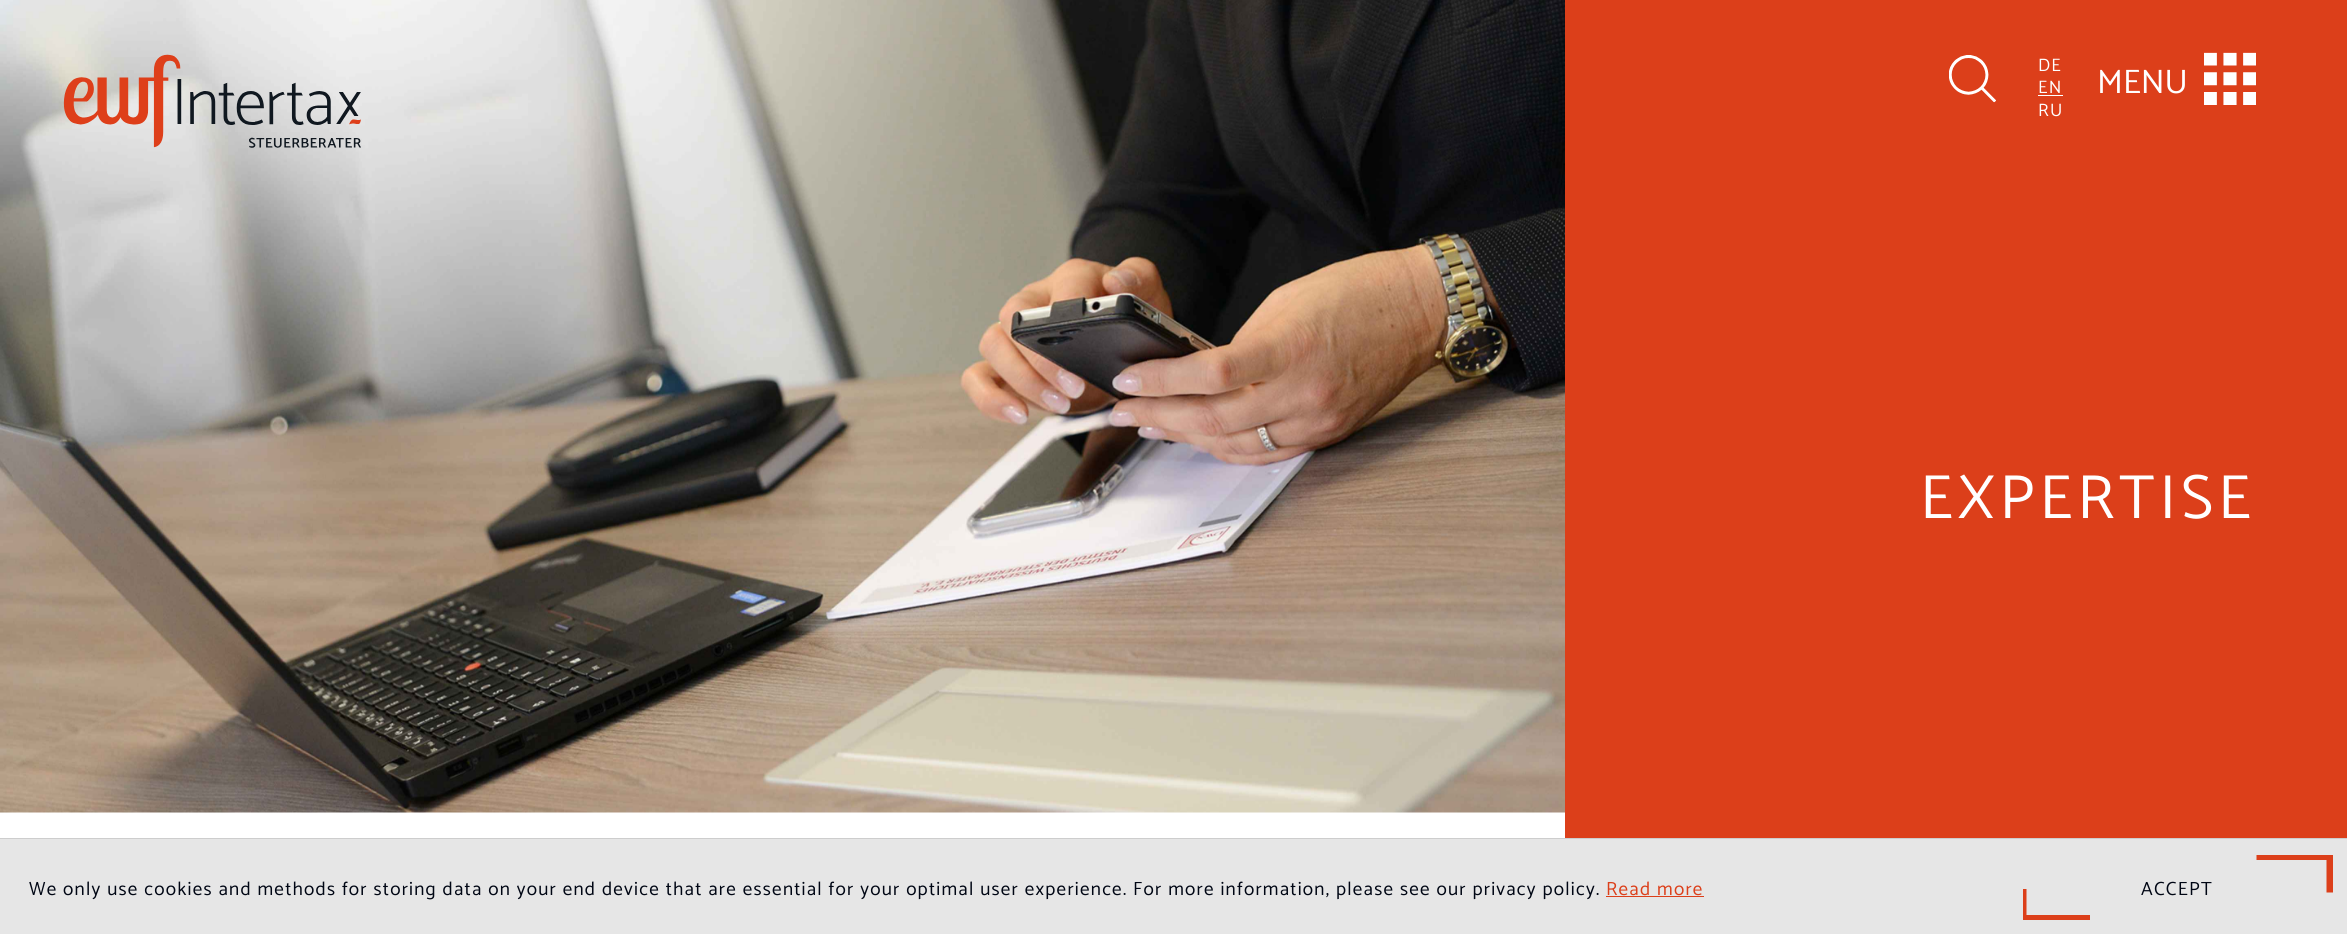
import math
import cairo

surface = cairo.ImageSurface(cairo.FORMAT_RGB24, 2347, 934)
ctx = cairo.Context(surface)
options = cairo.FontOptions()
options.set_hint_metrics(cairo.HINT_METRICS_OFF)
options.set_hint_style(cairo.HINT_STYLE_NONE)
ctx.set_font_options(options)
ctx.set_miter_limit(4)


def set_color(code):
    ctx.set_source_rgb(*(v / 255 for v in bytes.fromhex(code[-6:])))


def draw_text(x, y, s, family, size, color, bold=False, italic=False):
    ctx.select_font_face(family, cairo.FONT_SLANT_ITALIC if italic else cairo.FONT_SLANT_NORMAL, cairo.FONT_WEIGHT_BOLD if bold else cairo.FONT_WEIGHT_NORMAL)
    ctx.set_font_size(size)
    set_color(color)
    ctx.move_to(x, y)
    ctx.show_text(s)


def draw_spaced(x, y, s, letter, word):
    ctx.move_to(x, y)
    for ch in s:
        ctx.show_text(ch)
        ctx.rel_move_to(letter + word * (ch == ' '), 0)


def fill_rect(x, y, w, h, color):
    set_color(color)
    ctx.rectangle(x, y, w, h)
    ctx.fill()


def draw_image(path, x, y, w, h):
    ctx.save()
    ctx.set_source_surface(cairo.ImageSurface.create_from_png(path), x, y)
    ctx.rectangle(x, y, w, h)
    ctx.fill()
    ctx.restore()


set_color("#ffffff")
ctx.paint()
draw_image("assets/img1.png", 0, 0, 1565, 813)
draw_image("assets/img2.png", 63, 54, 298, 94)
fill_rect(1565, 0, 782, 838, "#dc3f1a")
draw_image("assets/img3.png", 1949, 55, 47, 48)
ctx.select_font_face("Catamaran")
ctx.set_font_size(18)
set_color("#ffffff")
draw_spaced(2038, 71, "DE", 1.25, 0)
draw_spaced(2038, 93, "EN", 1.25, 0)
fill_rect(2038, 95, 25, 1, "#ffffff")
draw_spaced(2038, 116, "RU", 1.25, 0)
draw_text(2097, 93, "MENU", "Catamaran", 34, "#ffffff")
draw_image("assets/img4.png", 2204, 52, 52, 53)
ctx.set_font_size(62.5)
draw_spaced(1920, 518, "EXPERTISE", 5, 0)
fill_rect(0, 839, 2347, 95, "#e6e6e6")
fill_rect(0, 838, 2347, 1, "#cdcdcd")
ctx.set_font_size(19.12)
set_color("#000614")
draw_spaced(29, 895, "We only use cookies and methods for storing data on your end device that are essential for your optimal user experience. For more information, please see our privacy policy.", 1.25, 0)
set_color("#dc3f1a")
draw_spaced(1606, 895, "Read more", 1.25, 0)
fill_rect(1606, 896, 98, 1, "#dc3f1a")
set_color("#000614")
draw_spaced(2141, 895, "ACCEPT", 1.25, 0)
ctx.save()
ctx.rectangle(2023, 855, 310, 65)
ctx.clip()
ctx.new_path()
ctx.move_to(2331.5, 855)
ctx.line_to(2256.5, 855)
ctx.move_to(2021.5, 889)
ctx.line_to(2021.5, 920)
ctx.line_to(2090, 920)
ctx.move_to(2331.5, 892.5)
ctx.line_to(2331.5, 855)
set_color("#dc3f1a")
ctx.set_line_width(10)
ctx.stroke()
ctx.restore()
surface.write_to_png("output.png")
